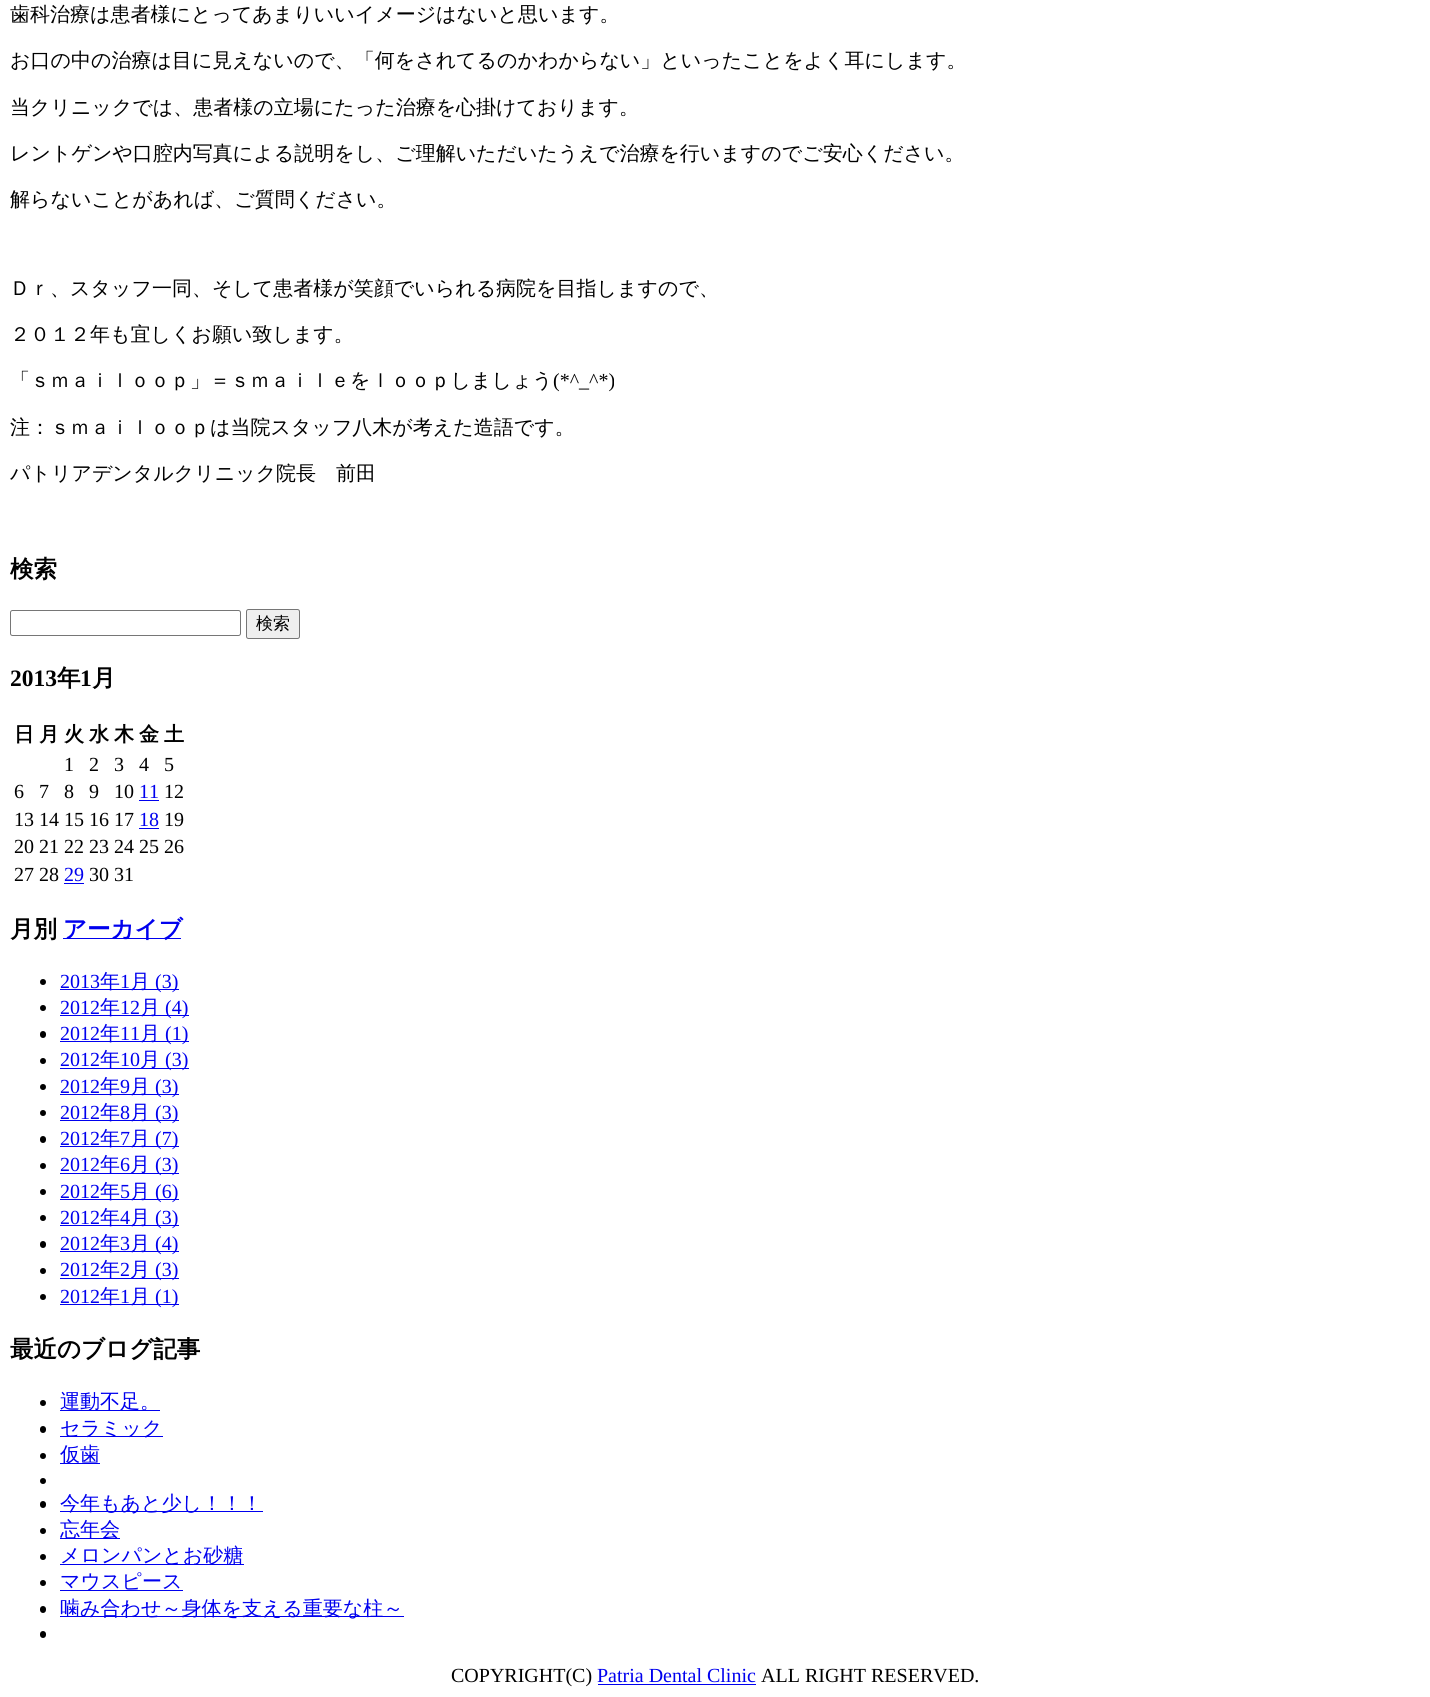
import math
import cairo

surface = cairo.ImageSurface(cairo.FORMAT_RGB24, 1430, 1697)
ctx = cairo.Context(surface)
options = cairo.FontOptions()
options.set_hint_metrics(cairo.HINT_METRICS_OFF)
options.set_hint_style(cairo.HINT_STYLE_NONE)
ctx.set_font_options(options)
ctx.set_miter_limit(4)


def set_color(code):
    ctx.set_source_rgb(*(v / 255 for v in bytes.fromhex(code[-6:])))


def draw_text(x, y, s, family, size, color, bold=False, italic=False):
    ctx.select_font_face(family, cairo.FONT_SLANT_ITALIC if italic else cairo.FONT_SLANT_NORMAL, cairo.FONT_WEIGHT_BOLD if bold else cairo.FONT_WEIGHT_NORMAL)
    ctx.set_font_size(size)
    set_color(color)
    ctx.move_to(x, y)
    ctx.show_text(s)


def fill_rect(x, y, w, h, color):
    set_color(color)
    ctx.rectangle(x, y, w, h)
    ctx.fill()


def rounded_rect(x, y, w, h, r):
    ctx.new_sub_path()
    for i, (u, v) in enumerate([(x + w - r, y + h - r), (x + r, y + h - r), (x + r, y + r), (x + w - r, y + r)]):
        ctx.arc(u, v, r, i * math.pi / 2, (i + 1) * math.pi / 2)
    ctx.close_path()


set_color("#ffffff")
ctx.paint()
draw_text(10, 21, "歯科治療は患者様にとってあまりいいイメージはないと思います。", "WenQuanYi Zen Hei Medium", 20, "#000000")
draw_text(10, 67, "お口の中の治療は目に見えないので、「何をされてるのかわからない」といったことをよく耳にします。", "WenQuanYi Zen Hei Medium", 20, "#000000")
draw_text(10, 114, "当クリニックでは、患者様の立場にたった治療を心掛けております。", "WenQuanYi Zen Hei Medium", 20, "#000000")
draw_text(10, 160, "レントゲンや口腔内写真による説明をし、ご理解いただいたうえで治療を行いますのでご安心ください。", "WenQuanYi Zen Hei Medium", 20, "#000000")
draw_text(10, 206, "解らないことがあれば、ご質問ください。", "WenQuanYi Zen Hei Medium", 20, "#000000")
draw_text(10, 295, "Ｄｒ、スタッフ一同、そして患者様が笑顔でいられる病院を目指しますので、", "WenQuanYi Zen Hei Medium", 20, "#000000")
draw_text(10, 341, "２０１２年も宜しくお願い致します。", "WenQuanYi Zen Hei Medium", 20, "#000000")
draw_text(10, 387, "「ｓｍａｉｌｏｏｐ」＝ｓｍａｉｌｅをｌｏｏｐしましょう", "WenQuanYi Zen Hei Medium", 20, "#000000")
draw_text(553, 387, "(*^_^*)", "Liberation Serif", 20, "#000000")
draw_text(10, 434, "注：ｓｍａｉｌｏｏｐは当院スタッフ八木が考えた造語です。", "WenQuanYi Zen Hei Medium", 20, "#000000")
draw_text(10, 480, "パトリアデンタルクリニック院長　前田", "WenQuanYi Zen Hei Medium", 20, "#000000")
draw_text(10, 577, "検索", "WenQuanYi Zen Hei", 23.5, "#000000", bold=True)
rounded_rect(10.5, 610.5, 230, 25, 2)
set_color("#767676")
ctx.set_line_width(1)
ctx.stroke()
set_color("#efefef")
rounded_rect(246.5, 609.5, 53, 29, 2)
ctx.fill_preserve()
set_color("#767676")
ctx.stroke()
draw_text(256, 629, "検索", "WenQuanYi Zen Hei Medium", 17, "#000000")
draw_text(10, 686, "2013", "Liberation Serif", 23.5, "#000000", bold=True)
draw_text(57, 686, "年", "WenQuanYi Zen Hei", 23.5, "#000000", bold=True)
draw_text(80, 686, "1", "Liberation Serif", 23.5, "#000000", bold=True)
draw_text(92, 686, "月", "WenQuanYi Zen Hei", 23.5, "#000000", bold=True)
draw_text(14, 741, "日", "WenQuanYi Zen Hei", 20, "#000000", bold=True)
draw_text(39, 741, "月", "WenQuanYi Zen Hei", 20, "#000000", bold=True)
draw_text(64, 741, "火", "WenQuanYi Zen Hei", 20, "#000000", bold=True)
draw_text(89, 741, "水", "WenQuanYi Zen Hei", 20, "#000000", bold=True)
draw_text(114, 741, "木", "WenQuanYi Zen Hei", 20, "#000000", bold=True)
draw_text(139, 741, "金", "WenQuanYi Zen Hei", 20, "#000000", bold=True)
draw_text(164, 741, "土", "WenQuanYi Zen Hei", 20, "#000000", bold=True)
draw_text(64, 771, "1", "Liberation Serif", 20, "#000000")
draw_text(89, 771, "2", "Liberation Serif", 20, "#000000")
draw_text(114, 771, "3", "Liberation Serif", 20, "#000000")
draw_text(139, 771, "4", "Liberation Serif", 20, "#000000")
draw_text(164, 771, "5", "Liberation Serif", 20, "#000000")
draw_text(14, 798, "6", "Liberation Serif", 20, "#000000")
draw_text(39, 798, "7", "Liberation Serif", 20, "#000000")
draw_text(64, 798, "8", "Liberation Serif", 20, "#000000")
draw_text(89, 798, "9", "Liberation Serif", 20, "#000000")
draw_text(114, 798, "10", "Liberation Serif", 20, "#000000")
draw_text(139, 798, "11", "Liberation Serif", 20, "#0000ee")
fill_rect(139, 800, 20, 1, "#0000ee")
draw_text(164, 798, "12", "Liberation Serif", 20, "#000000")
draw_text(14, 826, "13 14 15 16 17", "Liberation Serif", 20, "#000000")
draw_text(139, 826, "18", "Liberation Serif", 20, "#0000ee")
fill_rect(139, 828, 20, 1, "#0000ee")
draw_text(164, 826, "19", "Liberation Serif", 20, "#000000")
draw_text(14, 853, "20 21 22 23 24 25 26", "Liberation Serif", 20, "#000000")
draw_text(14, 881, "27 28", "Liberation Serif", 20, "#000000")
draw_text(64, 881, "29", "Liberation Serif", 20, "#0000ee")
fill_rect(64, 883, 20, 1, "#0000ee")
draw_text(89, 881, "30 31", "Liberation Serif", 20, "#000000")
draw_text(10, 937, "月別", "WenQuanYi Zen Hei", 23.5, "#000000", bold=True)
fill_rect(63, 938, 118, 1, "#0000ee")
draw_text(63, 937, "アーカイブ", "WenQuanYi Zen Hei", 23.5, "#0000ee", bold=True)
set_color("#000000")
ctx.new_path()
ctx.arc(43, 982, 3, 0, 2 * math.pi)
ctx.fill()
draw_text(60, 988, "2013", "Liberation Serif", 20, "#0000ee")
fill_rect(60, 989, 119, 1, "#0000ee")
draw_text(100, 988, "年", "WenQuanYi Zen Hei Medium", 20, "#0000ee")
draw_text(120, 988, "1", "Liberation Serif", 20, "#0000ee")
draw_text(130, 988, "月", "WenQuanYi Zen Hei Medium", 20, "#0000ee")
draw_text(155, 988, "(3)", "Liberation Serif", 20, "#0000ee")
set_color("#000000")
ctx.new_path()
ctx.arc(43, 1008, 3, 0, 2 * math.pi)
ctx.fill()
draw_text(60, 1014, "2012", "Liberation Serif", 20, "#0000ee")
fill_rect(60, 1015, 129, 1, "#0000ee")
draw_text(100, 1014, "年", "WenQuanYi Zen Hei Medium", 20, "#0000ee")
draw_text(120, 1014, "12", "Liberation Serif", 20, "#0000ee")
draw_text(140, 1014, "月", "WenQuanYi Zen Hei Medium", 20, "#0000ee")
draw_text(165, 1014, "(4)", "Liberation Serif", 20, "#0000ee")
set_color("#000000")
rounded_rect(40, 1031, 6, 7, 3)
ctx.fill()
draw_text(60, 1040, "2012", "Liberation Serif", 20, "#0000ee")
fill_rect(60, 1041, 129, 1, "#0000ee")
draw_text(100, 1040, "年", "WenQuanYi Zen Hei Medium", 20, "#0000ee")
draw_text(120, 1040, "11", "Liberation Serif", 20, "#0000ee")
draw_text(140, 1040, "月", "WenQuanYi Zen Hei Medium", 20, "#0000ee")
draw_text(165, 1040, "(1)", "Liberation Serif", 20, "#0000ee")
set_color("#000000")
ctx.new_path()
ctx.arc(43, 1061, 3, 0, 2 * math.pi)
ctx.fill()
draw_text(60, 1066, "2012", "Liberation Serif", 20, "#0000ee")
fill_rect(60, 1068, 129, 1, "#0000ee")
draw_text(100, 1066, "年", "WenQuanYi Zen Hei Medium", 20, "#0000ee")
draw_text(120, 1066, "10", "Liberation Serif", 20, "#0000ee")
draw_text(140, 1066, "月", "WenQuanYi Zen Hei Medium", 20, "#0000ee")
draw_text(165, 1066, "(3)", "Liberation Serif", 20, "#0000ee")
set_color("#000000")
ctx.new_path()
ctx.arc(43, 1087, 3, 0, 2 * math.pi)
ctx.fill()
draw_text(60, 1093, "2012", "Liberation Serif", 20, "#0000ee")
fill_rect(60, 1094, 119, 1, "#0000ee")
draw_text(100, 1093, "年", "WenQuanYi Zen Hei Medium", 20, "#0000ee")
draw_text(120, 1093, "9", "Liberation Serif", 20, "#0000ee")
draw_text(130, 1093, "月", "WenQuanYi Zen Hei Medium", 20, "#0000ee")
draw_text(155, 1093, "(3)", "Liberation Serif", 20, "#0000ee")
set_color("#000000")
ctx.new_path()
ctx.arc(43, 1113, 3, 0, 2 * math.pi)
ctx.fill()
draw_text(60, 1119, "2012", "Liberation Serif", 20, "#0000ee")
fill_rect(60, 1120, 119, 1, "#0000ee")
draw_text(100, 1119, "年", "WenQuanYi Zen Hei Medium", 20, "#0000ee")
draw_text(120, 1119, "8", "Liberation Serif", 20, "#0000ee")
draw_text(130, 1119, "月", "WenQuanYi Zen Hei Medium", 20, "#0000ee")
draw_text(155, 1119, "(3)", "Liberation Serif", 20, "#0000ee")
set_color("#000000")
rounded_rect(40, 1136, 6, 7, 3)
ctx.fill()
draw_text(60, 1145, "2012", "Liberation Serif", 20, "#0000ee")
fill_rect(60, 1146, 119, 1, "#0000ee")
draw_text(100, 1145, "年", "WenQuanYi Zen Hei Medium", 20, "#0000ee")
draw_text(120, 1145, "7", "Liberation Serif", 20, "#0000ee")
draw_text(130, 1145, "月", "WenQuanYi Zen Hei Medium", 20, "#0000ee")
draw_text(155, 1145, "(7)", "Liberation Serif", 20, "#0000ee")
set_color("#000000")
ctx.new_path()
ctx.arc(43, 1166, 3, 0, 2 * math.pi)
ctx.fill()
draw_text(60, 1171, "2012", "Liberation Serif", 20, "#0000ee")
fill_rect(60, 1173, 119, 1, "#0000ee")
draw_text(100, 1171, "年", "WenQuanYi Zen Hei Medium", 20, "#0000ee")
draw_text(120, 1171, "6", "Liberation Serif", 20, "#0000ee")
draw_text(130, 1171, "月", "WenQuanYi Zen Hei Medium", 20, "#0000ee")
draw_text(155, 1171, "(3)", "Liberation Serif", 20, "#0000ee")
set_color("#000000")
ctx.new_path()
ctx.arc(43, 1192, 3, 0, 2 * math.pi)
ctx.fill()
draw_text(60, 1198, "2012", "Liberation Serif", 20, "#0000ee")
fill_rect(60, 1199, 119, 1, "#0000ee")
draw_text(100, 1198, "年", "WenQuanYi Zen Hei Medium", 20, "#0000ee")
draw_text(120, 1198, "5", "Liberation Serif", 20, "#0000ee")
draw_text(130, 1198, "月", "WenQuanYi Zen Hei Medium", 20, "#0000ee")
draw_text(155, 1198, "(6)", "Liberation Serif", 20, "#0000ee")
set_color("#000000")
ctx.new_path()
ctx.arc(43, 1218, 3, 0, 2 * math.pi)
ctx.fill()
draw_text(60, 1224, "2012", "Liberation Serif", 20, "#0000ee")
fill_rect(60, 1225, 119, 1, "#0000ee")
draw_text(100, 1224, "年", "WenQuanYi Zen Hei Medium", 20, "#0000ee")
draw_text(120, 1224, "4", "Liberation Serif", 20, "#0000ee")
draw_text(130, 1224, "月", "WenQuanYi Zen Hei Medium", 20, "#0000ee")
draw_text(155, 1224, "(3)", "Liberation Serif", 20, "#0000ee")
set_color("#000000")
rounded_rect(40, 1241, 6, 7, 3)
ctx.fill()
draw_text(60, 1250, "2012", "Liberation Serif", 20, "#0000ee")
fill_rect(60, 1251, 119, 1, "#0000ee")
draw_text(100, 1250, "年", "WenQuanYi Zen Hei Medium", 20, "#0000ee")
draw_text(120, 1250, "3", "Liberation Serif", 20, "#0000ee")
draw_text(130, 1250, "月", "WenQuanYi Zen Hei Medium", 20, "#0000ee")
draw_text(155, 1250, "(4)", "Liberation Serif", 20, "#0000ee")
set_color("#000000")
ctx.new_path()
ctx.arc(43, 1271, 3, 0, 2 * math.pi)
ctx.fill()
draw_text(60, 1276, "2012", "Liberation Serif", 20, "#0000ee")
fill_rect(60, 1278, 119, 1, "#0000ee")
draw_text(100, 1276, "年", "WenQuanYi Zen Hei Medium", 20, "#0000ee")
draw_text(120, 1276, "2", "Liberation Serif", 20, "#0000ee")
draw_text(130, 1276, "月", "WenQuanYi Zen Hei Medium", 20, "#0000ee")
draw_text(155, 1276, "(3)", "Liberation Serif", 20, "#0000ee")
set_color("#000000")
ctx.new_path()
ctx.arc(43, 1297, 3, 0, 2 * math.pi)
ctx.fill()
draw_text(60, 1303, "2012", "Liberation Serif", 20, "#0000ee")
fill_rect(60, 1304, 119, 1, "#0000ee")
draw_text(100, 1303, "年", "WenQuanYi Zen Hei Medium", 20, "#0000ee")
draw_text(120, 1303, "1", "Liberation Serif", 20, "#0000ee")
draw_text(130, 1303, "月", "WenQuanYi Zen Hei Medium", 20, "#0000ee")
draw_text(155, 1303, "(1)", "Liberation Serif", 20, "#0000ee")
draw_text(10, 1357, "最近のブログ記事", "WenQuanYi Zen Hei", 23.5, "#000000", bold=True)
ctx.new_path()
ctx.arc(43, 1403, 3, 0, 2 * math.pi)
ctx.fill()
fill_rect(60, 1410, 100, 1, "#0000ee")
draw_text(60, 1408, "運動不足。", "WenQuanYi Zen Hei Medium", 20, "#0000ee")
set_color("#000000")
rounded_rect(40, 1426, 6, 7, 3)
ctx.fill()
fill_rect(60, 1436, 103, 1, "#0000ee")
draw_text(60, 1435, "セラミック", "WenQuanYi Zen Hei Medium", 20, "#0000ee")
set_color("#000000")
ctx.new_path()
ctx.arc(43, 1456, 3, 0, 2 * math.pi)
ctx.fill()
fill_rect(60, 1463, 40, 1, "#0000ee")
draw_text(60, 1461, "仮歯", "WenQuanYi Zen Hei Medium", 20, "#0000ee")
set_color("#000000")
ctx.new_path()
ctx.arc(43, 1481, 3, 0, 2 * math.pi)
ctx.fill()
rounded_rect(40, 1501, 6, 7, 3)
ctx.fill()
fill_rect(60, 1511, 203, 1, "#0000ee")
draw_text(60, 1510, "今年もあと少し！！！", "WenQuanYi Zen Hei Medium", 20, "#0000ee")
set_color("#000000")
ctx.new_path()
ctx.arc(43, 1531, 3, 0, 2 * math.pi)
ctx.fill()
fill_rect(60, 1538, 60, 1, "#0000ee")
draw_text(60, 1536, "忘年会", "WenQuanYi Zen Hei Medium", 20, "#0000ee")
set_color("#000000")
ctx.new_path()
ctx.arc(43, 1557, 3, 0, 2 * math.pi)
ctx.fill()
fill_rect(60, 1564, 184, 1, "#0000ee")
draw_text(60, 1562, "メロンパンとお砂糖", "WenQuanYi Zen Hei Medium", 20, "#0000ee")
set_color("#000000")
ctx.new_path()
ctx.arc(43, 1583, 3, 0, 2 * math.pi)
ctx.fill()
fill_rect(60, 1590, 123, 1, "#0000ee")
draw_text(60, 1588, "マウスピース", "WenQuanYi Zen Hei Medium", 20, "#0000ee")
set_color("#000000")
rounded_rect(40, 1606, 6, 7, 3)
ctx.fill()
fill_rect(60, 1616, 344, 1, "#0000ee")
draw_text(60, 1615, "噛み合わせ～身体を支える重要な柱～", "WenQuanYi Zen Hei Medium", 20, "#0000ee")
set_color("#000000")
rounded_rect(40, 1631, 6, 7, 3)
ctx.fill()
draw_text(451, 1682, "COPYRIGHT(C)", "Liberation Serif", 20, "#000000")
draw_text(597, 1682, "Patria Dental Clinic", "Liberation Serif", 20, "#0000ee")
fill_rect(598, 1684, 158, 1, "#0000ee")
draw_text(761, 1682, "ALL RIGHT RESERVED.", "Liberation Serif", 20, "#000000")
surface.write_to_png("output.png")
